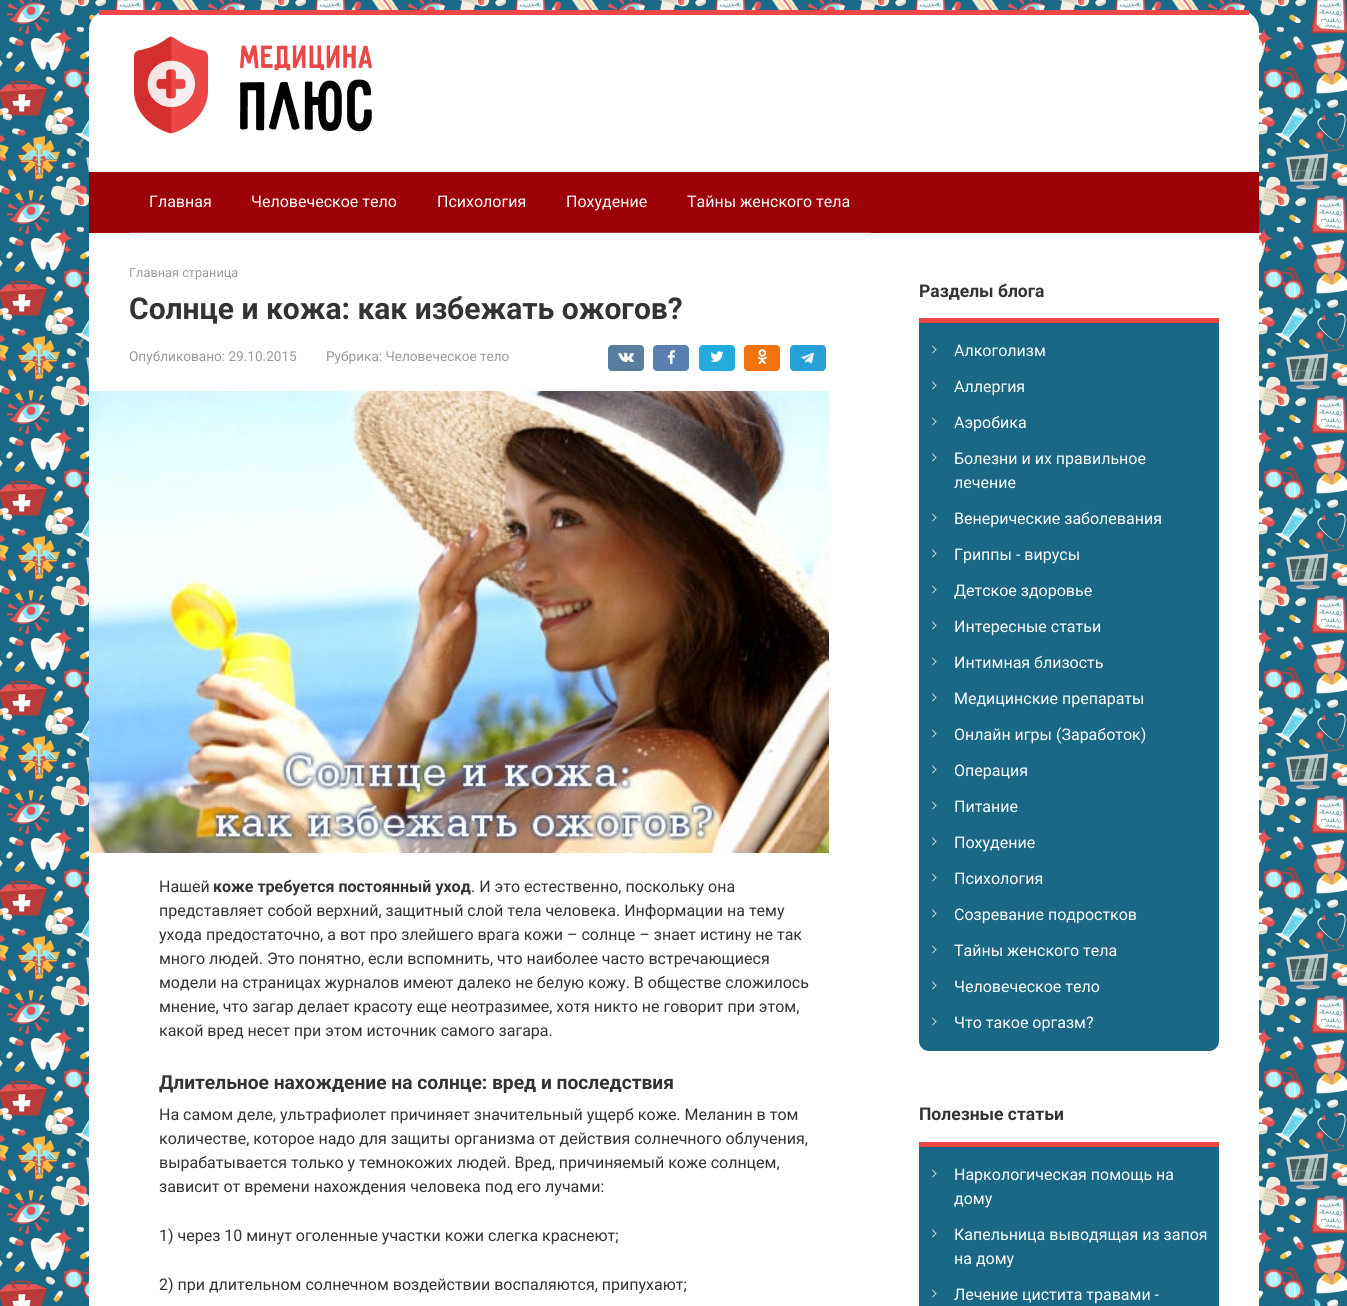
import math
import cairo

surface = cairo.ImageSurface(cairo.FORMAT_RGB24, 1347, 1306)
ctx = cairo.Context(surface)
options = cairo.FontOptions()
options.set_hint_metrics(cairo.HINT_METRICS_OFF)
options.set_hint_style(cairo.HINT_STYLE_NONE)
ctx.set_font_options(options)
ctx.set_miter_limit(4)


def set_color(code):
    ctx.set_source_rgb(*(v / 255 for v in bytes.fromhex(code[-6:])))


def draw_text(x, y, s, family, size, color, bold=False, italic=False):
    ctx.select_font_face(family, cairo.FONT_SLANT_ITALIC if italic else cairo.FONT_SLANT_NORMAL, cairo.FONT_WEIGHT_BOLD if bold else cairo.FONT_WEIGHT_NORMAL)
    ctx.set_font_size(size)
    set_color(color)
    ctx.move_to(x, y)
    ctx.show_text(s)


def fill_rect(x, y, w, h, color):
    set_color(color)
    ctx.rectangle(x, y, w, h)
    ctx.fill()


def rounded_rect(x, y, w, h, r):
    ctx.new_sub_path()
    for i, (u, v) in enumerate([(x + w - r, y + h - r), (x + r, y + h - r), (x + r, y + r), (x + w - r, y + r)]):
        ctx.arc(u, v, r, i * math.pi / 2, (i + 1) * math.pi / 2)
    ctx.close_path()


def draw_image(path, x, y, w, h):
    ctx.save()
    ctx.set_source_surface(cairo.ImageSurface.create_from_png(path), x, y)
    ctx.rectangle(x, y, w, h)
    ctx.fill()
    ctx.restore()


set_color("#ffffff")
ctx.paint()
draw_image("assets/img1.png", 0, 0, 1347, 1306)
set_color("#ffffff")
ctx.new_path()
ctx.move_to(109, 10)
ctx.line_to(1239, 10)
ctx.curve_to(1250, 10, 1259, 19, 1259, 30)
ctx.line_to(1259, 172)
ctx.line_to(89, 172)
ctx.line_to(89, 30)
ctx.curve_to(89, 19, 98, 10, 109, 10)
ctx.close_path()
ctx.fill()
fill_rect(99, 10, 1150, 5, "#ec4747")
draw_image("assets/img2.png", 133, 36, 239, 98)
fill_rect(89, 172, 1170, 61, "#9d0208")
fill_rect(129, 232, 742, 1, "#b13539")
draw_text(149, 207, "Главная", "Roboto", 16, "#ffffff")
draw_text(251, 207, "Человеческое тело", "Roboto", 16, "#ffffff")
draw_text(437, 207, "Психология", "Roboto", 16, "#ffffff")
draw_text(566, 207, "Похудение", "Roboto", 16, "#ffffff")
draw_text(687, 207, "Тайны женского тела", "Roboto", 16, "#ffffff")
fill_rect(89, 233, 1170, 1073, "#ffffff")
draw_text(129, 277, "Главная страница", "Roboto", 12.75, "#999999")
draw_text(129, 319, "Солнце и кожа: как избежать ожогов?", "Roboto", 30, "#333333", bold=True)
draw_text(129, 361, "Опубликовано: 29.10.2015", "Roboto", 13.6, "#999999")
draw_text(326, 361, "Рубрика: Человеческое тело", "Roboto", 13.6, "#999999")
set_color("#587e9f")
rounded_rect(608, 345, 36, 26, 4)
ctx.fill()
draw_image("assets/img3.png", 618, 352, 16, 10)
set_color("#5a80b1")
rounded_rect(653, 345, 36, 26, 4)
ctx.fill()
draw_image("assets/img4.png", 667, 350, 8, 15)
set_color("#24aadd")
rounded_rect(699, 345, 36, 26, 4)
ctx.fill()
draw_image("assets/img5.png", 710, 351, 14, 11)
set_color("#f2720c")
rounded_rect(744, 345, 36, 26, 4)
ctx.fill()
draw_image("assets/img6.png", 757, 349, 10, 16)
set_color("#289fd9")
rounded_rect(790, 345, 36, 26, 4)
ctx.fill()
draw_image("assets/img7.png", 801, 352, 13, 12)
draw_image("assets/img8.png", 89, 391, 740, 462)
draw_text(159, 892, "Нашей", "Roboto", 16, "#333333")
draw_text(213, 892, "коже требуется постоянный уход", "Roboto", 16, "#333333", bold=True)
draw_text(471, 892, ". И это естественно, поскольку она", "Roboto", 16, "#333333")
draw_text(159, 916, "представляет собой верхний, защитный слой тела человека. Информации на тему", "Roboto", 16, "#333333")
draw_text(159, 940, "ухода предостаточно, а вот про злейшего врага кожи – солнце – знает истину не так", "Roboto", 16, "#333333")
draw_text(159, 964, "много людей. Это понятно, если вспомнить, что наиболее часто встречающиеся", "Roboto", 16, "#333333")
draw_text(159, 988, "модели на страницах журналов имеют далеко не белую кожу. В обществе сложилось", "Roboto", 16, "#333333")
draw_text(159, 1012, "мнение, что загар делает красоту еще неотразимее, хотя никто не говорит при этом,", "Roboto", 16, "#333333")
draw_text(159, 1036, "какой вред несет при этом источник самого загара.", "Roboto", 16, "#333333")
draw_text(159, 1089, "Длительное нахождение на солнце: вред и последствия", "Roboto", 19.2, "#333333", bold=True)
draw_text(159, 1120, "На самом деле, ультрафиолет причиняет значительный ущерб коже. Меланин в том", "Roboto", 16, "#333333")
draw_text(159, 1144, "количестве, которое надо для защиты организма от действия солнечного облучения,", "Roboto", 16, "#333333")
draw_text(159, 1168, "вырабатывается только у темнокожих людей. Вред, причиняемый коже солнцем,", "Roboto", 16, "#333333")
draw_text(159, 1192, "зависит от времени нахождения человека под его лучами:", "Roboto", 16, "#333333")
draw_text(159, 1241, "1) через 10 минут оголенные участки кожи слегка краснеют;", "Roboto", 16, "#333333")
draw_text(159, 1290, "2) при длительном солнечном воздействии воспаляются, припухают;", "Roboto", 16, "#333333")
draw_text(919, 297, "Разделы блога", "Roboto", 17.5, "#333333", bold=True)
set_color("#196886")
ctx.new_path()
ctx.move_to(919, 318)
ctx.line_to(1219, 318)
ctx.line_to(1219, 1041)
ctx.curve_to(1219, 1046.5, 1214.5, 1051, 1209, 1051)
ctx.line_to(929, 1051)
ctx.curve_to(923.5, 1051, 919, 1046.5, 919, 1041)
ctx.close_path()
ctx.fill()
fill_rect(919, 318, 300, 5, "#ec4747")
draw_image("assets/img9.png", 932, 345, 5, 9)
draw_text(954, 356, "Алкоголизм", "Roboto", 16, "#ffffff")
draw_image("assets/img9.png", 932, 381, 5, 9)
draw_text(954, 392, "Аллергия", "Roboto", 16, "#ffffff")
draw_image("assets/img9.png", 932, 417, 5, 9)
draw_text(954, 428, "Аэробика", "Roboto", 16, "#ffffff")
draw_image("assets/img9.png", 932, 453, 5, 9)
draw_text(954, 464, "Болезни и их правильное", "Roboto", 16, "#ffffff")
draw_text(954, 488, "лечение", "Roboto", 16, "#ffffff")
draw_image("assets/img9.png", 932, 513, 5, 9)
draw_text(954, 524, "Венерические заболевания", "Roboto", 16, "#ffffff")
draw_image("assets/img9.png", 932, 549, 5, 9)
draw_text(954, 560, "Гриппы - вирусы", "Roboto", 16, "#ffffff")
draw_image("assets/img9.png", 932, 585, 5, 9)
draw_text(954, 596, "Детское здоровье", "Roboto", 16, "#ffffff")
draw_image("assets/img9.png", 932, 621, 5, 9)
draw_text(954, 632, "Интересные статьи", "Roboto", 16, "#ffffff")
draw_image("assets/img9.png", 932, 657, 5, 9)
draw_text(954, 668, "Интимная близость", "Roboto", 16, "#ffffff")
draw_image("assets/img9.png", 932, 693, 5, 9)
draw_text(954, 704, "Медицинские препараты", "Roboto", 16, "#ffffff")
draw_image("assets/img9.png", 932, 729, 5, 9)
draw_text(954, 740, "Онлайн игры (Заработок)", "Roboto", 16, "#ffffff")
draw_image("assets/img9.png", 932, 765, 5, 9)
draw_text(954, 776, "Операция", "Roboto", 16, "#ffffff")
draw_image("assets/img9.png", 932, 801, 5, 9)
draw_text(954, 812, "Питание", "Roboto", 16, "#ffffff")
draw_image("assets/img9.png", 932, 837, 5, 9)
draw_text(954, 848, "Похудение", "Roboto", 16, "#ffffff")
draw_image("assets/img9.png", 932, 873, 5, 9)
draw_text(954, 884, "Психология", "Roboto", 16, "#ffffff")
draw_image("assets/img9.png", 932, 909, 5, 9)
draw_text(954, 920, "Созревание подростков", "Roboto", 16, "#ffffff")
draw_image("assets/img9.png", 932, 945, 5, 9)
draw_text(954, 956, "Тайны женского тела", "Roboto", 16, "#ffffff")
draw_image("assets/img9.png", 932, 981, 5, 9)
draw_text(954, 992, "Человеческое тело", "Roboto", 16, "#ffffff")
draw_image("assets/img9.png", 932, 1017, 5, 9)
draw_text(954, 1028, "Что такое оргазм?", "Roboto", 16, "#ffffff")
draw_text(919, 1120, "Полезные статьи", "Roboto", 17.5, "#333333", bold=True)
fill_rect(919, 1147, 300, 159, "#196886")
fill_rect(919, 1142, 300, 5, "#ec4747")
draw_image("assets/img9.png", 932, 1169, 5, 9)
draw_text(954, 1180, "Наркологическая помощь на", "Roboto", 16, "#ffffff")
draw_text(954, 1204, "дому", "Roboto", 16, "#ffffff")
draw_image("assets/img9.png", 932, 1229, 5, 9)
draw_text(954, 1240, "Капельница выводящая из запоя", "Roboto", 16, "#ffffff")
draw_text(954, 1264, "на дому", "Roboto", 16, "#ffffff")
draw_image("assets/img9.png", 932, 1289, 5, 9)
draw_text(954, 1300, "Лечение цистита травами -", "Roboto", 16, "#ffffff")
surface.write_to_png("output.png")
